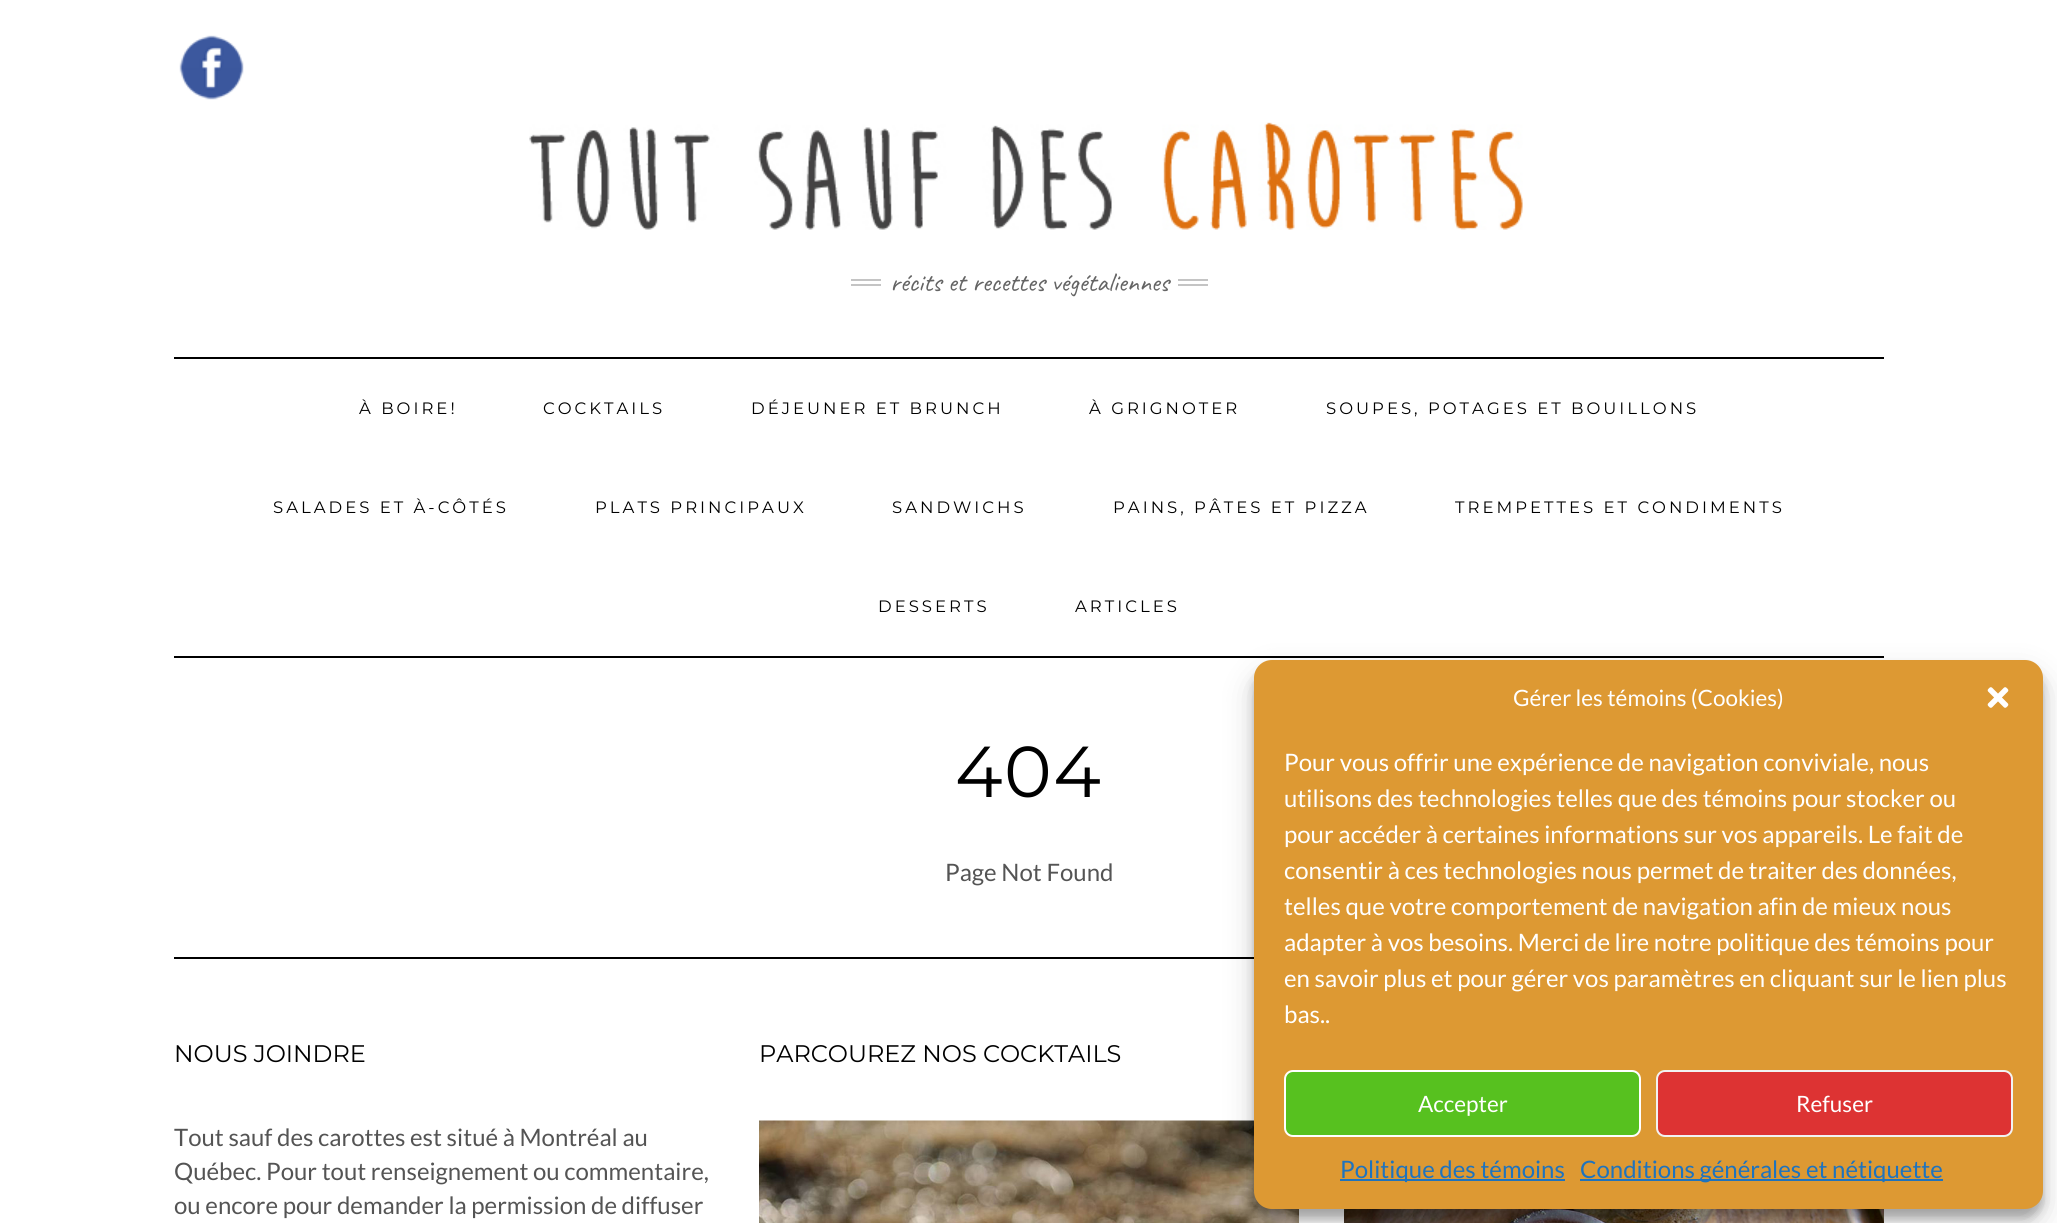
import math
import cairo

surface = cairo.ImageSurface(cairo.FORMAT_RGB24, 2057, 1223)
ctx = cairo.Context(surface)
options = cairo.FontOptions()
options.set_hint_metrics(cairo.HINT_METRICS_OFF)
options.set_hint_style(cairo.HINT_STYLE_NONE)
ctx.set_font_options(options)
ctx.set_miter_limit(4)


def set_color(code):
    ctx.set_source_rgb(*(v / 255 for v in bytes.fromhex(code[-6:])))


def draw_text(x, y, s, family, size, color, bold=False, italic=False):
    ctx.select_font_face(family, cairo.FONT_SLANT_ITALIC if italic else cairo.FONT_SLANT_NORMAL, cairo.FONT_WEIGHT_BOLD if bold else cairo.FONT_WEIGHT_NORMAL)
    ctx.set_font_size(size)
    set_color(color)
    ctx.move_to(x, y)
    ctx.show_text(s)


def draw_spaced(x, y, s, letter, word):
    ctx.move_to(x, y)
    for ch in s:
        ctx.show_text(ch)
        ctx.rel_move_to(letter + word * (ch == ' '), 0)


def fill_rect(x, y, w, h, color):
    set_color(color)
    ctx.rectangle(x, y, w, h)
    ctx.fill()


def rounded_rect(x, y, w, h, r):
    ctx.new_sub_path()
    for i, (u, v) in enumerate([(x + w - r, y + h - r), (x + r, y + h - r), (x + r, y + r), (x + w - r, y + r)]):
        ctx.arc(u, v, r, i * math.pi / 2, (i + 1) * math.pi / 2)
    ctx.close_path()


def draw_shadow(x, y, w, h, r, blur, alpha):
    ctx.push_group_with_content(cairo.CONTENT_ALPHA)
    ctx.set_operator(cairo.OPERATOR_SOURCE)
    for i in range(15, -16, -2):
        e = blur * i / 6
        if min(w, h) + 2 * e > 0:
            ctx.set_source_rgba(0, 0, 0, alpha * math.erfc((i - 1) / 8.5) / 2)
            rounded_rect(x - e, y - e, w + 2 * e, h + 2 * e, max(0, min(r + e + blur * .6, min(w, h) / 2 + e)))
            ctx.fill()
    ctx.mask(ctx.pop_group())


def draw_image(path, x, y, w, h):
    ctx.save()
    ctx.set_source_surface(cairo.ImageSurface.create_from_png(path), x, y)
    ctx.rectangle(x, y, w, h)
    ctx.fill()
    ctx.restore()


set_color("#ffffff")
ctx.paint()
draw_image("assets/img1.png", 179, 35, 65, 65)
draw_image("assets/img2.png", 529, 122, 994, 108)
fill_rect(851, 279, 30, 2, "#c4c4c4")
fill_rect(851, 284, 30, 2, "#c4c4c4")
draw_text(890, 291, "récits et recettes végétaliennes", "Caveat", 27, "#646464")
fill_rect(1178, 279, 30, 2, "#c4c4c4")
fill_rect(1178, 284, 30, 2, "#c4c4c4")
fill_rect(174, 357, 1710, 2, "#000000")
fill_rect(174, 656, 1710, 2, "#000000")
ctx.select_font_face("Montserrat")
ctx.set_font_size(16.5)
draw_spaced(359, 414, "À BOIRE!", 3, 0)
draw_spaced(543, 414, "COCKTAILS", 3, 0)
draw_spaced(751, 414, "DÉJEUNER ET BRUNCH", 3, 0)
draw_spaced(1089, 414, "À GRIGNOTER", 3, 0)
draw_spaced(1326, 414, "SOUPES, POTAGES ET BOUILLONS", 3, 0)
draw_spaced(273, 513, "SALADES ET À-CÔTÉS", 3, 0)
draw_spaced(595, 513, "PLATS PRINCIPAUX", 3, 0)
draw_spaced(892, 513, "SANDWICHS", 3, 0)
draw_spaced(1113, 513, "PAINS, PÂTES ET PIZZA", 3, 0)
draw_spaced(1455, 513, "TREMPETTES ET CONDIMENTS", 3, 0)
draw_spaced(878, 612, "DESSERTS", 3, 0)
draw_spaced(1075, 612, "ARTICLES", 3, 0)
ctx.set_font_size(72)
draw_spaced(955, 797, "404", 1.5, 0)
draw_text(945, 881, "Page Not Found", "Lato", 24, "#545454")
fill_rect(174, 957, 1080, 2, "#000000")
draw_text(174, 1062, "NOUS JOINDRE", "Montserrat", 24, "#000000")
draw_text(174, 1146, "Tout sauf des carottes est situé à Montréal au", "Lato", 24, "#545454")
draw_text(174, 1180, "Québec. Pour tout renseignement ou commentaire,", "Lato", 24, "#545454")
draw_text(174, 1214, "ou encore pour demander la permission de diffuser", "Lato", 24, "#545454")
draw_text(759, 1062, "PARCOUREZ NOS COCKTAILS", "Montserrat", 24, "#000000")
draw_image("assets/img3.png", 759, 1120, 540, 103)
draw_image("assets/img4.png", 1344, 1209, 540, 14)
set_color("#000000")
draw_shadow(1254, 669, 789, 549, 18, 4.5, 0.23)
draw_shadow(1254, 675, 789, 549, 18, 15, 0.19)
set_color("#dd9933")
rounded_rect(1254, 660, 789, 549, 18)
ctx.fill()
draw_text(1513, 706, "Gérer les témoins (Cookies)", "Lato", 22.5, "#ffffff")
draw_image("assets/img5.png", 1987, 687, 22, 21)
draw_text(1284, 771, "Pour vous offrir une expérience de navigation conviviale, nous", "Lato", 24, "#ffffff")
draw_text(1284, 807, "utilisons des technologies telles que des témoins pour stocker ou", "Lato", 24, "#ffffff")
draw_text(1284, 843, "pour accéder à certaines informations sur vos appareils. Le fait de", "Lato", 24, "#ffffff")
draw_text(1284, 879, "consentir à ces technologies nous permet de traiter des données,", "Lato", 24, "#ffffff")
draw_text(1284, 915, "telles que votre comportement de navigation afin de mieux nous", "Lato", 24, "#ffffff")
draw_text(1284, 951, "adapter à vos besoins. Merci de lire notre politique des témoins pour", "Lato", 24, "#ffffff")
draw_text(1284, 987, "en savoir plus et pour gérer vos paramètres en cliquant sur le lien plus", "Lato", 24, "#ffffff")
draw_text(1284, 1023, "bas..", "Lato", 24, "#ffffff")
set_color("#57c11f")
rounded_rect(1285, 1071, 355, 65, 8)
ctx.fill_preserve()
set_color("#ffffff")
ctx.stroke()
draw_text(1418, 1112, "Accepter", "Lato", 22.5, "#ffffff")
set_color("#dd3333")
rounded_rect(1657, 1071, 355, 65, 8)
ctx.fill_preserve()
set_color("#f2f2f2")
ctx.stroke()
draw_text(1796, 1112, "Refuser", "Lato", 22.5, "#ffffff")
fill_rect(1340, 1179, 225, 2, "#1e73be")
draw_text(1340, 1178, "Politique des témoins", "Lato", 24, "#1e73be")
fill_rect(1580, 1179, 363, 2, "#1e73be")
draw_text(1580, 1178, "Conditions générales et nétiquette", "Lato", 24, "#1e73be")
surface.write_to_png("output.png")
